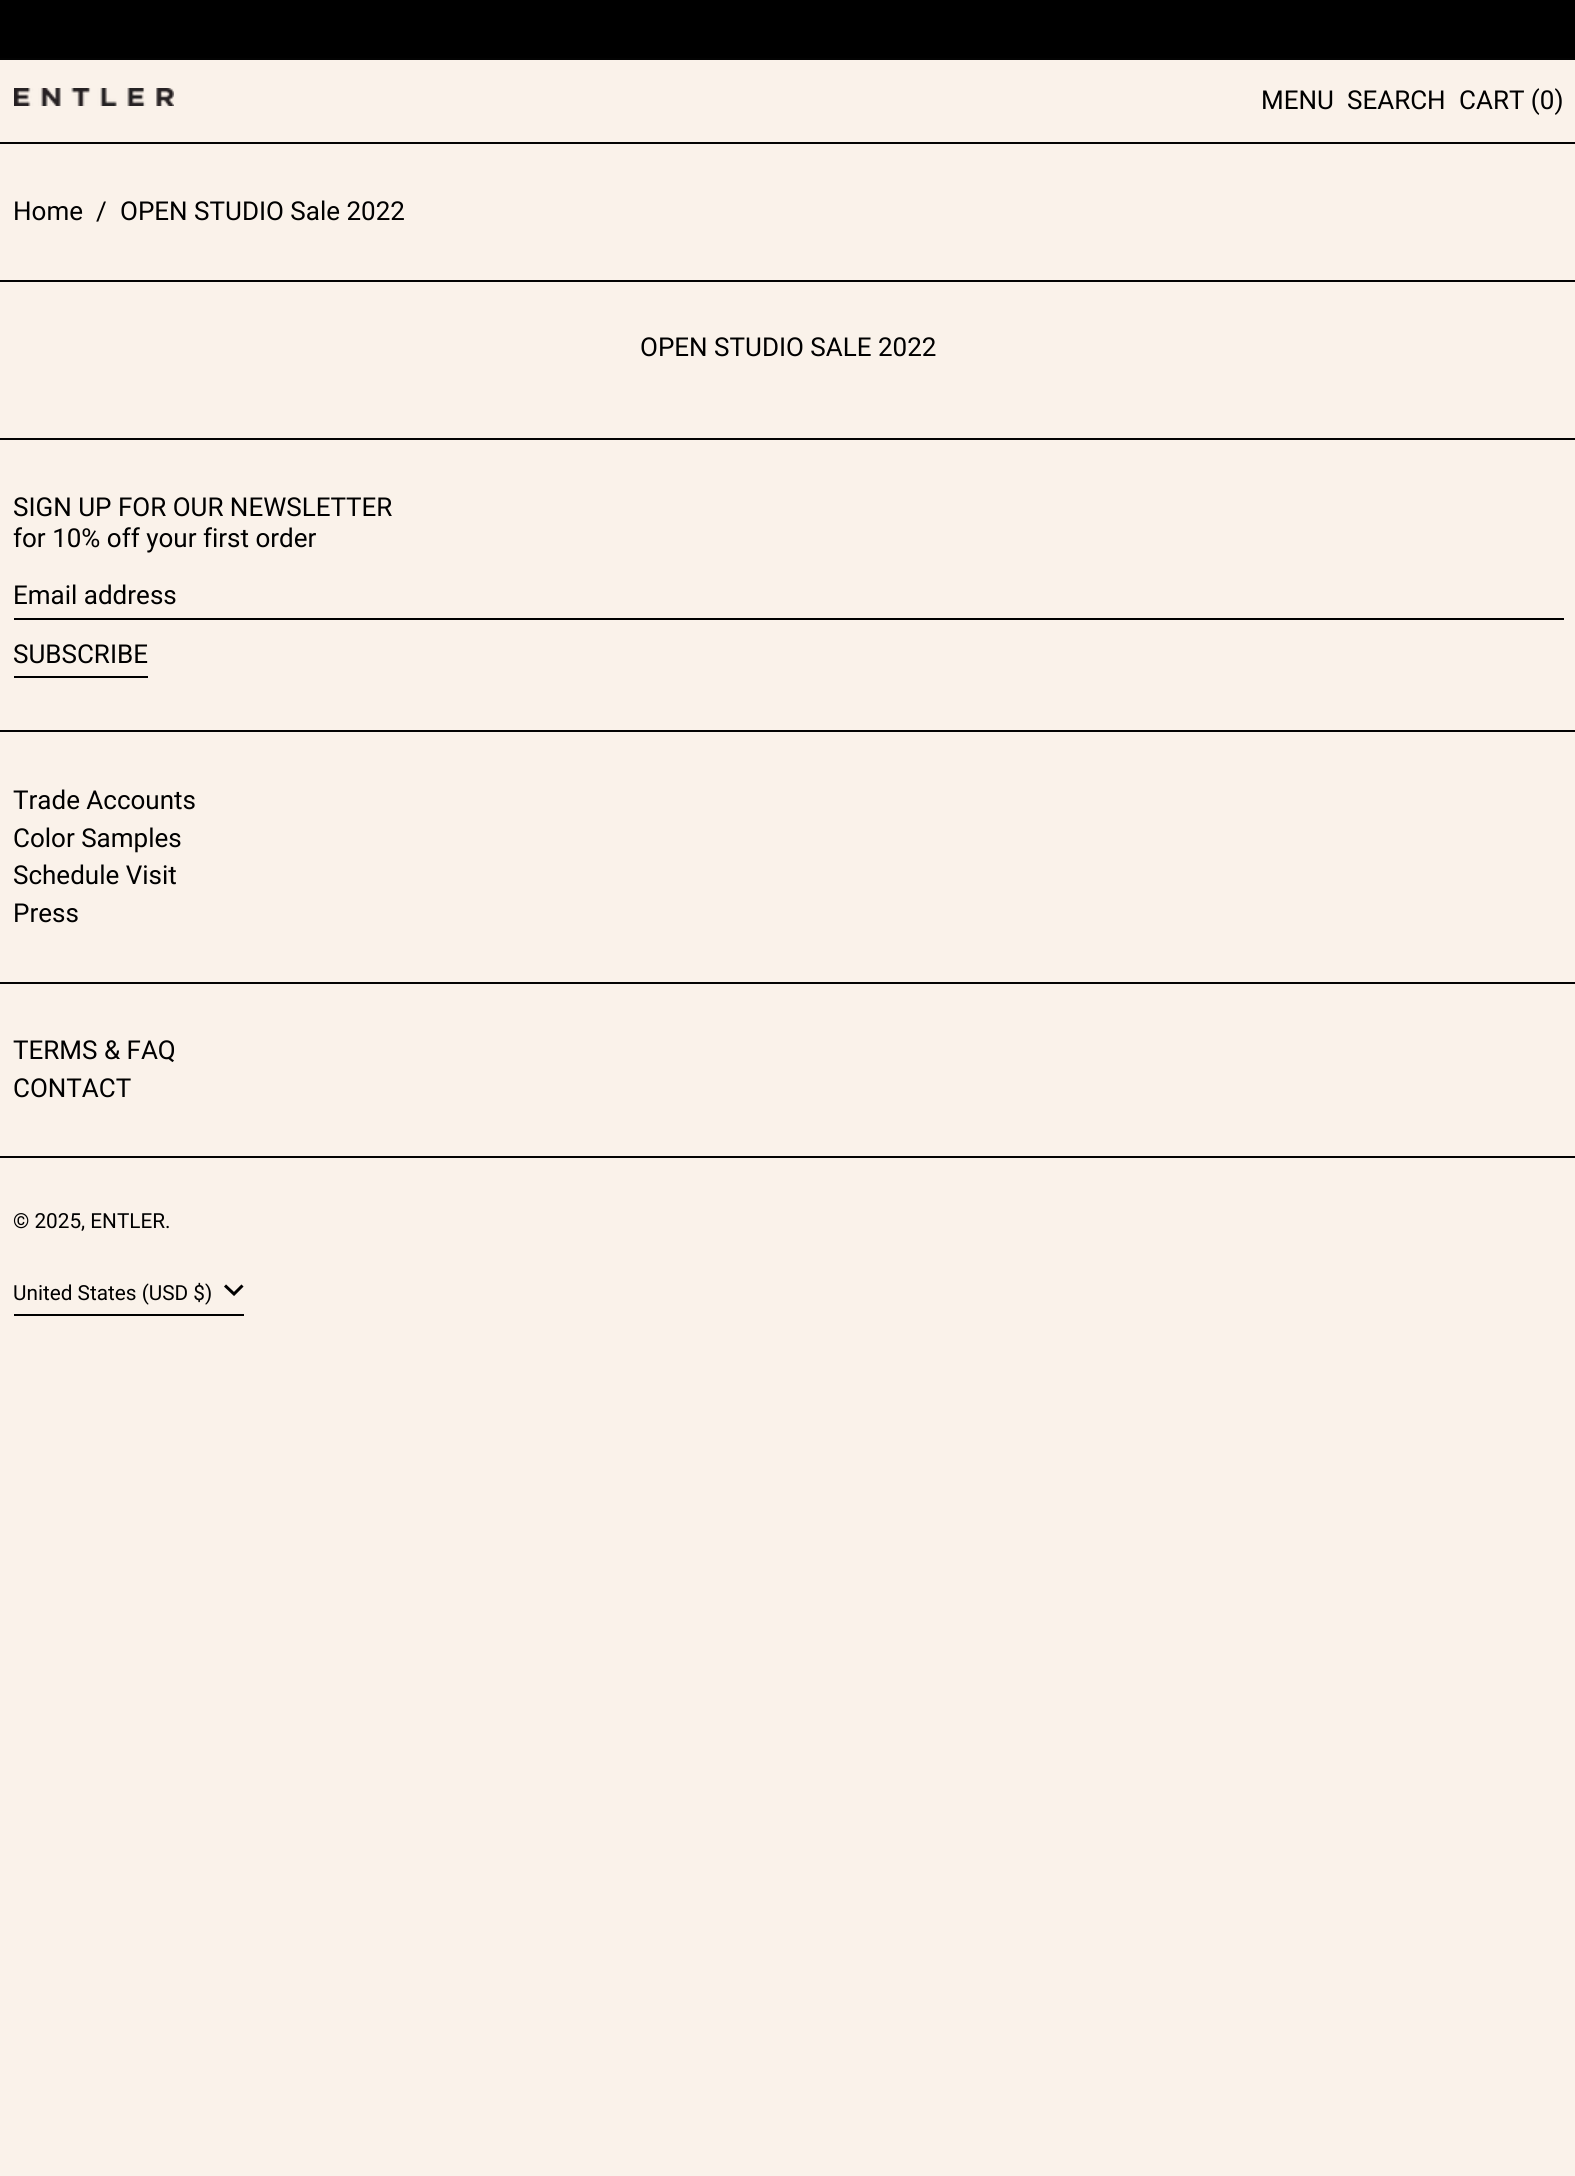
import math
import cairo

surface = cairo.ImageSurface(cairo.FORMAT_RGB24, 1575, 2176)
ctx = cairo.Context(surface)
options = cairo.FontOptions()
options.set_hint_metrics(cairo.HINT_METRICS_OFF)
options.set_hint_style(cairo.HINT_STYLE_NONE)
ctx.set_font_options(options)
ctx.set_miter_limit(4)


def set_color(code):
    ctx.set_source_rgb(*(v / 255 for v in bytes.fromhex(code[-6:])))


def draw_text(x, y, s, family, size, color, bold=False, italic=False):
    ctx.select_font_face(family, cairo.FONT_SLANT_ITALIC if italic else cairo.FONT_SLANT_NORMAL, cairo.FONT_WEIGHT_BOLD if bold else cairo.FONT_WEIGHT_NORMAL)
    ctx.set_font_size(size)
    set_color(color)
    ctx.move_to(x, y)
    ctx.show_text(s)


def fill_rect(x, y, w, h, color):
    set_color(color)
    ctx.rectangle(x, y, w, h)
    ctx.fill()


def draw_image(path, x, y, w, h):
    ctx.save()
    ctx.set_source_surface(cairo.ImageSurface.create_from_png(path), x, y)
    ctx.rectangle(x, y, w, h)
    ctx.fill()
    ctx.restore()


set_color("#faf2ea")
ctx.paint()
fill_rect(0, 0, 1575, 58, "#000000")
fill_rect(0, 58, 1575, 2, "#030303")
fill_rect(0, 142, 1575, 2, "#030303")
draw_image("assets/img1.png", 14, 88, 160, 18)
draw_text(1261, 109, "MENU", "Roboto", 26, "#000000")
draw_text(1347, 109, "SEARCH", "Roboto", 26, "#000000")
draw_text(1459, 109, "CART (0)", "Roboto", 26, "#000000")
fill_rect(0, 280, 1575, 2, "#030303")
draw_text(13, 220, "Home", "Roboto", 26, "#000000")
draw_text(96, 220, "/", "Roboto", 26, "#000000")
draw_text(120, 220, "OPEN STUDIO Sale 2022", "Roboto", 26, "#000000")
fill_rect(0, 438, 1575, 2, "#030303")
draw_text(640, 356, "OPEN STUDIO SALE 2022", "Roboto", 26, "#000000")
fill_rect(0, 730, 1575, 2, "#030303")
draw_text(13, 516, "SIGN UP FOR OUR NEWSLETTER", "Roboto", 26, "#000000")
draw_text(13, 547, "for 10% off your first order", "Roboto", 26, "#000000")
fill_rect(14, 618, 1550, 2, "#000000")
draw_text(13, 604, "Email address", "Roboto", 26, "#000000")
fill_rect(14, 676, 134, 2, "#000000")
draw_text(13, 663, "SUBSCRIBE", "Roboto", 26, "#000000")
fill_rect(0, 1156, 1575, 2, "#030303")
fill_rect(0, 982, 1575, 2, "#030303")
draw_text(13, 809, "Trade Accounts", "Roboto", 26, "#000000")
draw_text(13, 847, "Color Samples", "Roboto", 26, "#000000")
draw_text(13, 884, "Schedule Visit", "Roboto", 26, "#000000")
draw_text(13, 922, "Press", "Roboto", 26, "#000000")
draw_text(13, 1059, "TERMS & FAQ", "Roboto", 26, "#000000")
draw_text(13, 1097, "CONTACT", "Roboto", 26, "#000000")
draw_text(13, 1228, "© 2025, ENTLER.", "Roboto", 20.75, "#000000")
fill_rect(14, 1314, 230, 2, "#000000")
draw_text(13, 1300, "United States (USD $)", "Roboto", 20.75, "#000000")
ctx.new_path()
ctx.move_to(225, 1285.5)
ctx.line_to(234, 1294)
ctx.line_to(242.5, 1285.5)
ctx.set_line_width(3)
ctx.stroke()
surface.write_to_png("output.png")
